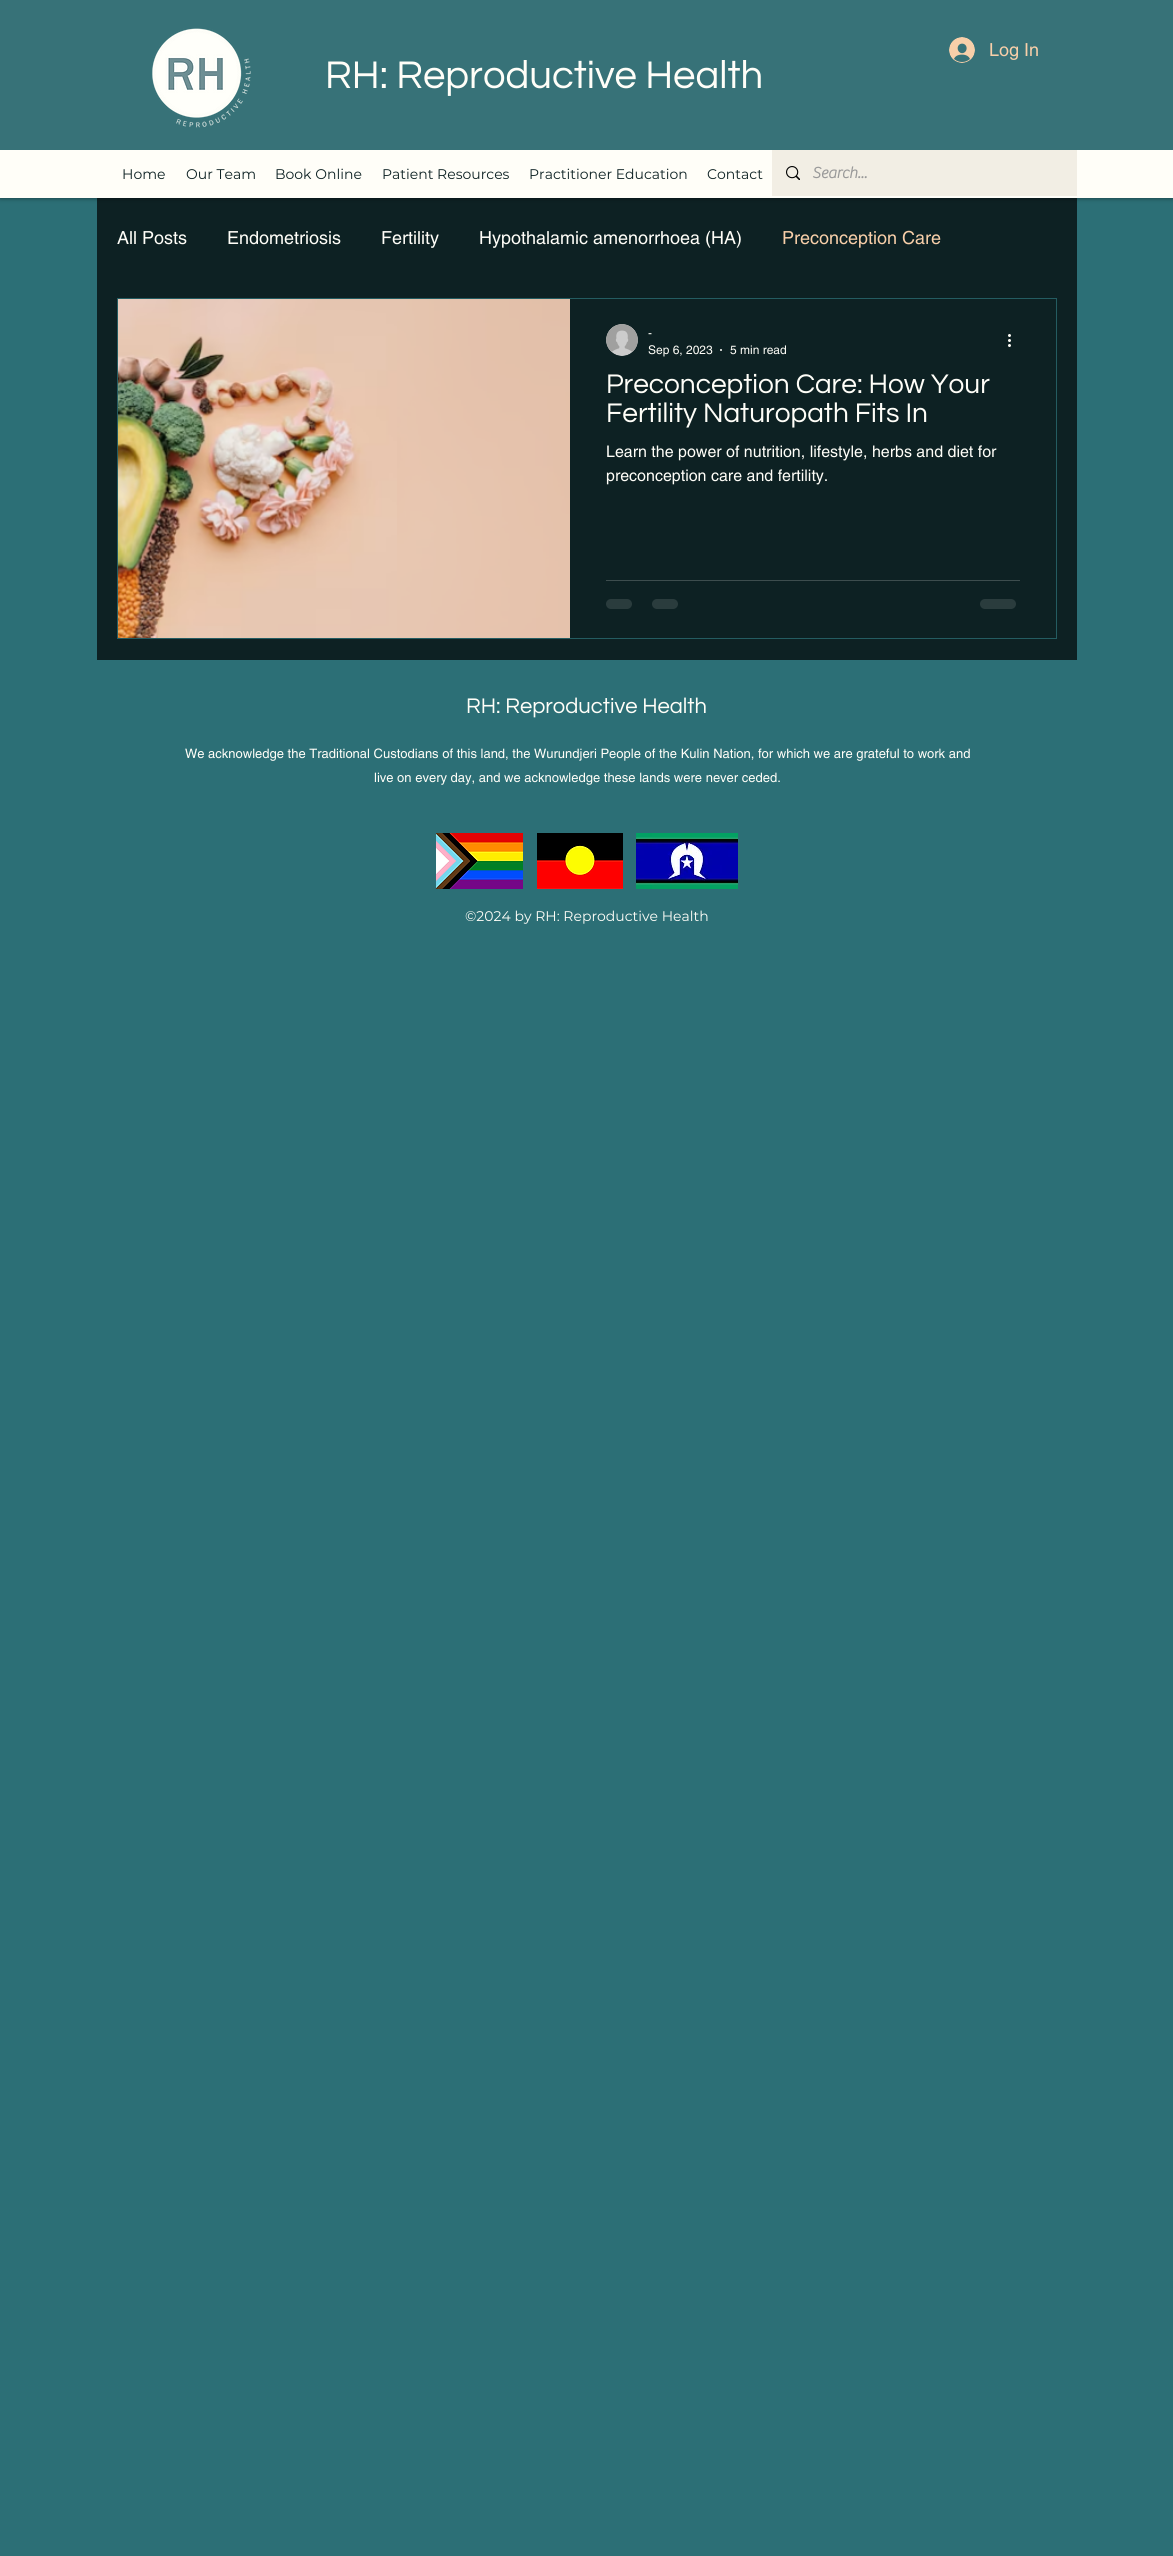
import math
import cairo

surface = cairo.ImageSurface(cairo.FORMAT_RGB24, 1173, 2556)
ctx = cairo.Context(surface)
options = cairo.FontOptions()
options.set_hint_metrics(cairo.HINT_METRICS_OFF)
options.set_hint_style(cairo.HINT_STYLE_NONE)
ctx.set_font_options(options)
ctx.set_miter_limit(4)


def set_color(code):
    ctx.set_source_rgb(*(v / 255 for v in bytes.fromhex(code[-6:])))


def draw_text(x, y, s, family, size, color, bold=False, italic=False):
    ctx.select_font_face(family, cairo.FONT_SLANT_ITALIC if italic else cairo.FONT_SLANT_NORMAL, cairo.FONT_WEIGHT_BOLD if bold else cairo.FONT_WEIGHT_NORMAL)
    ctx.set_font_size(size)
    set_color(color)
    ctx.move_to(x, y)
    ctx.show_text(s)


def fill_rect(x, y, w, h, color):
    set_color(color)
    ctx.rectangle(x, y, w, h)
    ctx.fill()


def rounded_rect(x, y, w, h, r):
    ctx.new_sub_path()
    for i, (u, v) in enumerate([(x + w - r, y + h - r), (x + r, y + h - r), (x + r, y + r), (x + w - r, y + r)]):
        ctx.arc(u, v, r, i * math.pi / 2, (i + 1) * math.pi / 2)
    ctx.close_path()


def draw_shadow(x, y, w, h, r, blur, alpha):
    ctx.push_group_with_content(cairo.CONTENT_ALPHA)
    ctx.set_operator(cairo.OPERATOR_SOURCE)
    for i in range(15, -16, -2):
        e = blur * i / 6
        if min(w, h) + 2 * e > 0:
            ctx.set_source_rgba(0, 0, 0, alpha * math.erfc((i - 1) / 8.5) / 2)
            rounded_rect(x - e, y - e, w + 2 * e, h + 2 * e, max(0, min(r + e + blur * .6, min(w, h) / 2 + e)))
            ctx.fill()
    ctx.mask(ctx.pop_group())


def draw_image(path, x, y, w, h):
    ctx.save()
    ctx.set_source_surface(cairo.ImageSurface.create_from_png(path), x, y)
    ctx.rectangle(x, y, w, h)
    ctx.fill()
    ctx.restore()


set_color("#2c6f76")
ctx.paint()
fill_rect(97, 198, 980, 462, "#0d2123")
set_color("#000000")
draw_shadow(0, 0, 1173, 198, 0, 2.5, 0.5)
fill_rect(0, 0, 1173, 150, "#377278")
draw_image("assets/img1.png", 152, 28, 99, 100)
draw_image("assets/img2.png", 949, 37, 26, 26)
draw_text(989, 56, "Log In", "helvetica", 18, "#f8cfa9")
draw_text(325, 88, "RH: Reproductive Health", "Questrial", 40, "#fffef8")
fill_rect(0, 150, 1173, 48, "#fffef8")
draw_text(122, 179, "Home", "Montserrat", 14, "#0d2123")
draw_text(186, 179, "Our Team", "Montserrat", 14, "#0d2123")
draw_text(275, 179, "Book Online", "Montserrat", 14, "#0d2123")
draw_text(382, 179, "Patient Resources", "Montserrat", 14, "#0d2123")
draw_text(529, 179, "Practitioner Education", "Montserrat", 14, "#0d2123")
draw_text(707, 179, "Contact", "Montserrat", 14, "#0d2123")
fill_rect(772, 150, 305, 46, "#f2eee4")
draw_image("assets/img3.png", 786, 166, 14, 14)
draw_text(812, 178, "Search...", "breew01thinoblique", 16, "#999999", bold=True)
draw_text(117, 244, "All Posts", "helvetica", 18, "#fffef8")
draw_text(227, 244, "Endometriosis", "helvetica", 18, "#fffef8")
draw_text(381, 244, "Fertility", "helvetica", 18, "#fffef8")
draw_text(479, 244, "Hypothalamic amenorrhoea (HA)", "helvetica", 18, "#fffef8")
draw_text(782, 244, "Preconception Care", "helvetica", 18, "#f8cfa9")
ctx.rectangle(117.5, 298.5, 939, 340)
set_color("#245c61")
ctx.set_line_width(1)
ctx.stroke()
draw_image("assets/img4.png", 118, 299, 279, 339)
draw_image("assets/img5.png", 397, 299, 173, 339)
draw_image("assets/img6.png", 606, 324, 32, 32)
draw_text(648, 337, "-", "helvetica", 12, "#fffef8")
draw_text(648, 354, "Sep 6, 2023", "helvetica", 12, "#fffef8")
ctx.new_path()
ctx.arc(721, 350, 1, 0, 2 * math.pi)
ctx.fill()
draw_text(730, 354, "5 min read", "helvetica", 12, "#fffef8")
draw_image("assets/img7.png", 1008, 334, 3, 13)
draw_text(606, 393, "Preconception Care: How Your", "Questrial", 28, "#fffef8")
draw_text(606, 422, "Fertility Naturopath Fits In", "Questrial", 28, "#fffef8")
draw_text(606, 457, "Learn the power of nutrition, lifestyle, herbs and diet for", "helvetica", 16, "#fffef8")
draw_text(606, 481, "preconception care and fertility.", "helvetica", 16, "#fffef8")
fill_rect(606, 580, 414, 1, "#3d4d4e")
set_color("#2a3c3d")
rounded_rect(606, 599, 26, 10, 5)
ctx.fill()
rounded_rect(652, 599, 26, 10, 5)
ctx.fill()
rounded_rect(980, 599, 36, 10, 5)
ctx.fill()
draw_text(466, 713, "RH: Reproductive Health", "Questrial", 22, "#fffef8")
draw_text(185, 758, "We acknowledge the Traditional Custodians of this land, the Wurundjeri People of the Kulin Nation, for which we are grateful to work and", "helvetica", 13, "#fffef8")
draw_text(374, 782, "live on every day, and we acknowledge these lands were never ceded.", "helvetica", 13, "#fffef8")
draw_image("assets/img8.png", 436, 833, 87, 56)
draw_image("assets/img9.png", 537, 833, 86, 56)
draw_image("assets/img10.png", 636, 833, 102, 56)
draw_text(465, 921, "©2024 by RH: Reproductive Health", "Montserrat", 14, "#fffef8")
surface.write_to_png("output.png")
